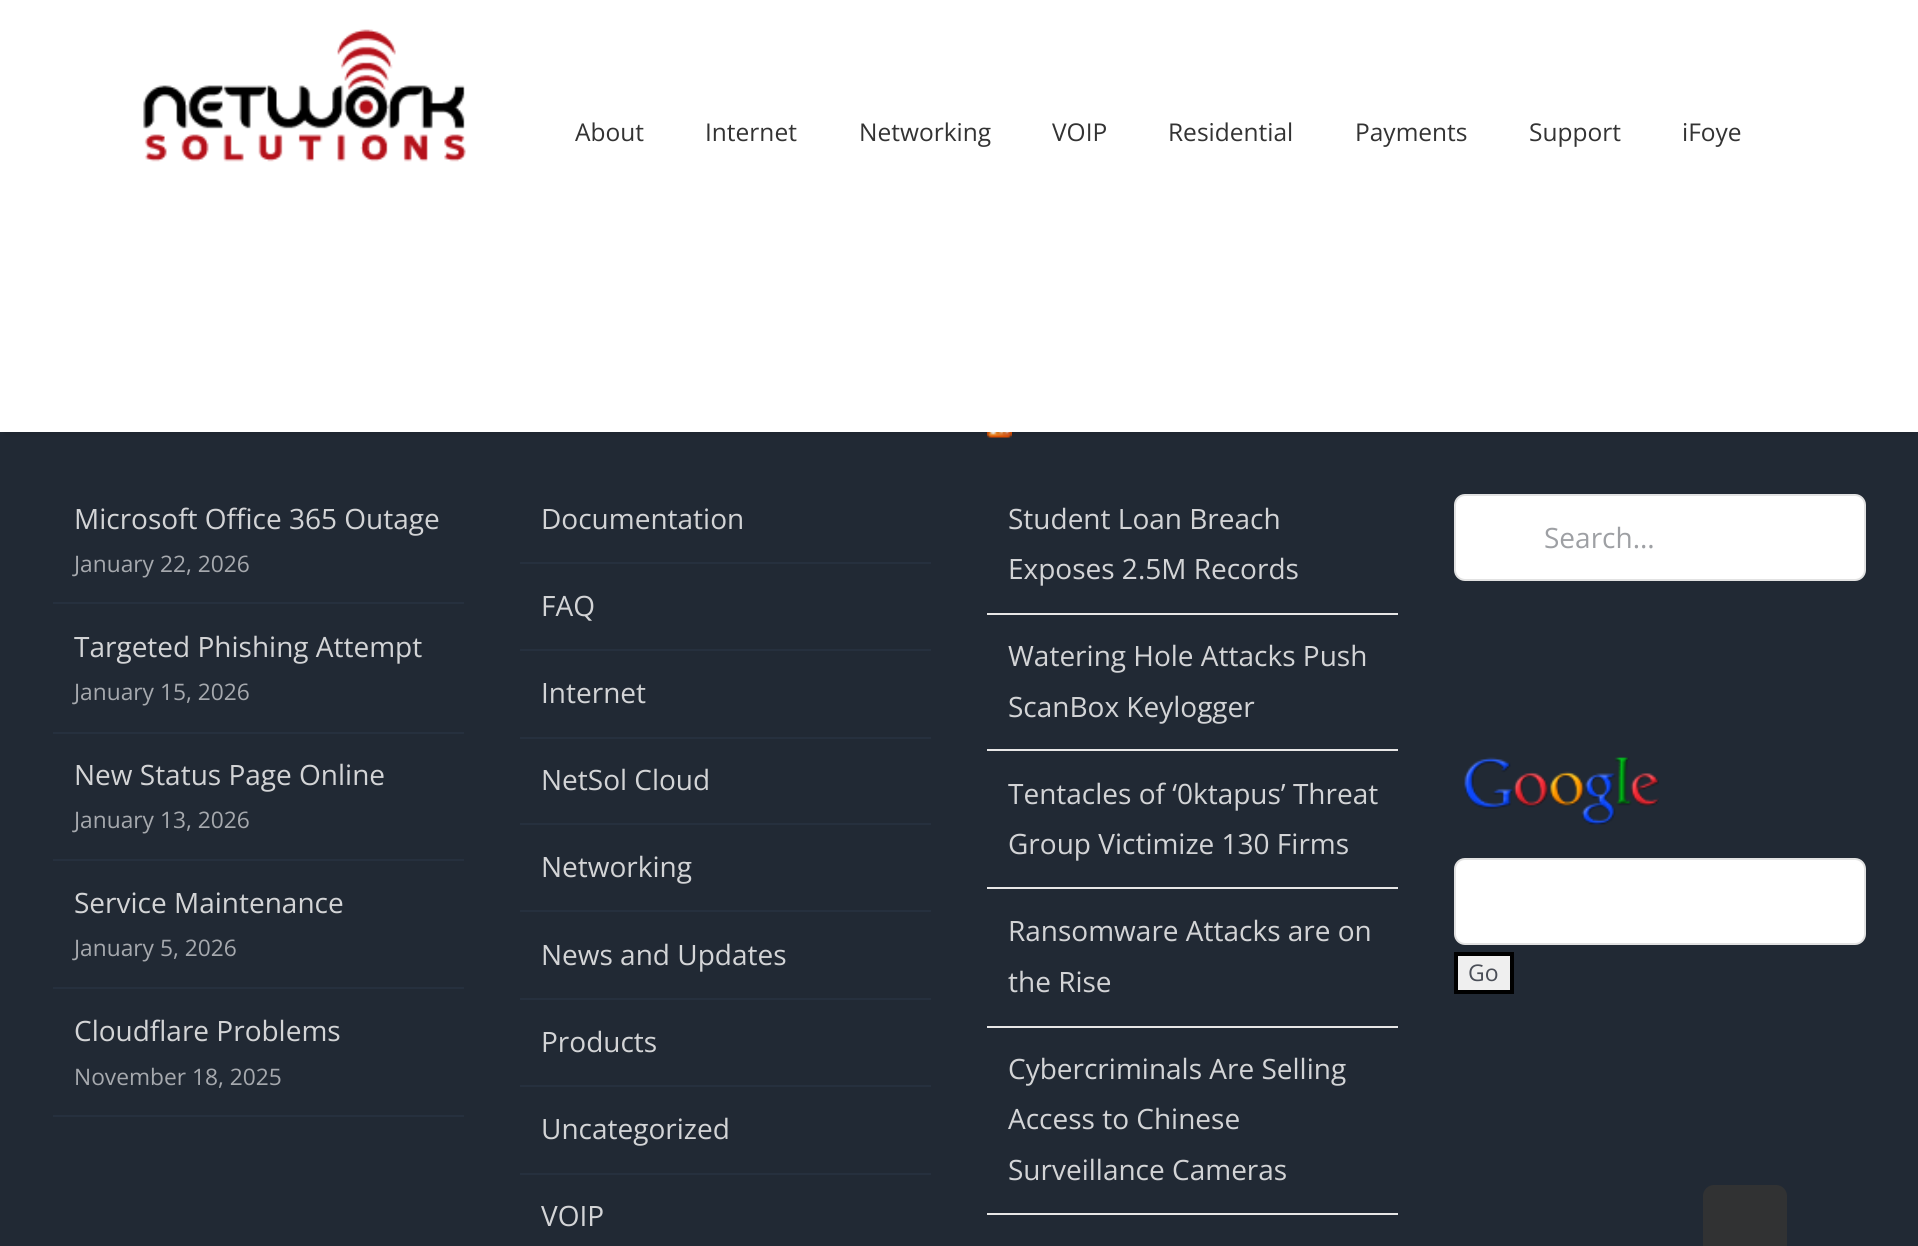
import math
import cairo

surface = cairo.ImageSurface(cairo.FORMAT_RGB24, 1918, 1246)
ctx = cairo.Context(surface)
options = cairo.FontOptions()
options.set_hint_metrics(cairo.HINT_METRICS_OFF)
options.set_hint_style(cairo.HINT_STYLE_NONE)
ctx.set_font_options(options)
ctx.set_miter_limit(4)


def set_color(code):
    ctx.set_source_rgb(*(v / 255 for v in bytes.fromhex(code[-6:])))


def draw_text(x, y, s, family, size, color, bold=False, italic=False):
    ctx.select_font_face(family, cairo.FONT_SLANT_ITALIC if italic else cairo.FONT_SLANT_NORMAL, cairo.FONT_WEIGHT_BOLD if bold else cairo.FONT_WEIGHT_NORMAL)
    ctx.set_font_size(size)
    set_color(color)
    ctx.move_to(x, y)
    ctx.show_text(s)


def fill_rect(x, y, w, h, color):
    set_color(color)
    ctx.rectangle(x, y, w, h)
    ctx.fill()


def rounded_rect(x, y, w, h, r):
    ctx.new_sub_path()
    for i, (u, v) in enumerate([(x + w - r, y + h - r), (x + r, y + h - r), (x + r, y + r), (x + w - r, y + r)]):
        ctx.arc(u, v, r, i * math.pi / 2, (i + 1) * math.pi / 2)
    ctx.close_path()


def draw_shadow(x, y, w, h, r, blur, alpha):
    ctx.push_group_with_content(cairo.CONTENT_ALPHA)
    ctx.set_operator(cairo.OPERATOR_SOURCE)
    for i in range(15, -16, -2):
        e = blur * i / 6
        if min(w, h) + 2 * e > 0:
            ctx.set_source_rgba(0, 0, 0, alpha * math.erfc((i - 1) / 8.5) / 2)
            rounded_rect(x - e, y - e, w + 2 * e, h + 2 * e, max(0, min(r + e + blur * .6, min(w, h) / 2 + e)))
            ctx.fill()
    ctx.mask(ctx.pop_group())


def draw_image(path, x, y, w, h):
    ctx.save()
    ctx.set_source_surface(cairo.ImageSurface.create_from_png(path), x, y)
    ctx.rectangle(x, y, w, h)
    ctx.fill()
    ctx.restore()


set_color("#212934")
ctx.paint()
draw_image("assets/img2.png", 987, 432, 25, 6)
set_color("#000000")
draw_shadow(5, 12, 1908, 422, 0, 2.5, 0.12)
fill_rect(0, 0, 1918, 432, "#ffffff")
draw_image("assets/img1.png", 143, 29, 323, 133)
draw_text(575, 141, "About", "Open Sans", 24.5, "#333333")
draw_text(705, 141, "Internet", "Open Sans", 24.5, "#333333")
draw_text(859, 141, "Networking", "Open Sans", 24.5, "#333333")
draw_text(1052, 141, "VOIP", "Open Sans", 24.5, "#333333")
draw_text(1168, 141, "Residential", "Open Sans", 24.5, "#333333")
draw_text(1355, 141, "Payments", "Open Sans", 24.5, "#333333")
draw_text(1529, 141, "Support", "Open Sans", 24.5, "#333333")
draw_text(1682, 141, "iFoye", "Open Sans", 24.5, "#333333")
fill_rect(53, 602, 411, 2, "#26303e")
draw_text(74, 529, "Microsoft Office 365 Outage", "Open Sans", 28, "#d3d4d6")
draw_text(74, 572, "January 22, 2026", "Open Sans", 22.75, "#a6a9ae")
fill_rect(53, 732, 411, 2, "#26303e")
draw_text(74, 657, "Targeted Phishing Attempt", "Open Sans", 28, "#d3d4d6")
draw_text(74, 700, "January 15, 2026", "Open Sans", 22.75, "#a6a9ae")
fill_rect(53, 859, 411, 2, "#26303e")
draw_text(74, 785, "New Status Page Online", "Open Sans", 28, "#d3d4d6")
draw_text(74, 828, "January 13, 2026", "Open Sans", 22.75, "#a6a9ae")
fill_rect(53, 987, 411, 2, "#26303e")
draw_text(74, 913, "Service Maintenance", "Open Sans", 28, "#d3d4d6")
draw_text(74, 956, "January 5, 2026", "Open Sans", 22.75, "#a6a9ae")
fill_rect(53, 1115, 411, 2, "#26303e")
draw_text(74, 1041, "Cloudflare Problems", "Open Sans", 28, "#d3d4d6")
draw_text(74, 1085, "November 18, 2025", "Open Sans", 22.75, "#a6a9ae")
fill_rect(520, 562, 411, 2, "#26303e")
draw_text(541, 529, "Documentation", "Open Sans", 28, "#d3d4d6")
fill_rect(520, 649, 411, 2, "#26303e")
draw_text(541, 616, "FAQ", "Open Sans", 28, "#d3d4d6")
fill_rect(520, 737, 411, 2, "#26303e")
draw_text(541, 703, "Internet", "Open Sans", 28, "#d3d4d6")
fill_rect(520, 823, 411, 2, "#26303e")
draw_text(541, 790, "NetSol Cloud", "Open Sans", 28, "#d3d4d6")
fill_rect(520, 910, 411, 2, "#26303e")
draw_text(541, 877, "Networking", "Open Sans", 28, "#d3d4d6")
fill_rect(520, 998, 411, 2, "#26303e")
draw_text(541, 965, "News and Updates", "Open Sans", 28, "#d3d4d6")
fill_rect(520, 1085, 411, 2, "#26303e")
draw_text(541, 1052, "Products", "Open Sans", 28, "#d3d4d6")
fill_rect(520, 1173, 411, 2, "#26303e")
draw_text(541, 1139, "Uncategorized", "Open Sans", 28, "#d3d4d6")
draw_text(541, 1226, "VOIP", "Open Sans", 28, "#d3d4d6")
fill_rect(987, 613, 411, 2, "#e7e6e6")
draw_text(1008, 529, "Student Loan Breach", "Open Sans", 28, "#d3d4d6")
draw_text(1008, 579, "Exposes 2.5M Records", "Open Sans", 28, "#d3d4d6")
fill_rect(987, 749, 411, 2, "#e7e6e6")
draw_text(1008, 666, "Watering Hole Attacks Push", "Open Sans", 28, "#d3d4d6")
draw_text(1008, 717, "ScanBox Keylogger", "Open Sans", 28, "#d3d4d6")
fill_rect(987, 887, 411, 2, "#e7e6e6")
draw_text(1008, 804, "Tentacles of ‘0ktapus’ Threat", "Open Sans", 28, "#d3d4d6")
draw_text(1008, 854, "Group Victimize 130 Firms", "Open Sans", 28, "#d3d4d6")
fill_rect(987, 1026, 411, 2, "#e7e6e6")
draw_text(1008, 941, "Ransomware Attacks are on", "Open Sans", 28, "#d3d4d6")
draw_text(1008, 992, "the Rise", "Open Sans", 28, "#d3d4d6")
fill_rect(987, 1213, 411, 2, "#e7e6e6")
draw_text(1008, 1079, "Cybercriminals Are Selling", "Open Sans", 28, "#d3d4d6")
draw_text(1008, 1129, "Access to Chinese", "Open Sans", 28, "#d3d4d6")
draw_text(1008, 1180, "Surveillance Cameras", "Open Sans", 28, "#d3d4d6")
set_color("#ffffff")
rounded_rect(1455, 495, 410, 85, 10)
ctx.fill_preserve()
set_color("#e2e2e2")
ctx.stroke()
draw_text(1544, 548, "Search...", "Open Sans", 28, "#9ea0a4")
draw_image("assets/img3.png", 1464, 757, 195, 68)
set_color("#ffffff")
rounded_rect(1455, 859, 410, 85, 10)
ctx.fill_preserve()
set_color("#e2e2e2")
ctx.stroke()
set_color("#efefef")
ctx.rectangle(1456, 954, 56, 38)
ctx.fill_preserve()
set_color("#000000")
ctx.set_line_width(4)
ctx.stroke()
draw_text(1468, 981, "Go", "Open Sans", 23, "#4a4e57")
set_color("#313233")
ctx.new_path()
ctx.move_to(1714, 1185)
ctx.line_to(1776, 1185)
ctx.curve_to(1782, 1185, 1787, 1190, 1787, 1196)
ctx.line_to(1787, 1246)
ctx.line_to(1703, 1246)
ctx.line_to(1703, 1196)
ctx.curve_to(1703, 1190, 1708, 1185, 1714, 1185)
ctx.close_path()
ctx.fill()
surface.write_to_png("output.png")
